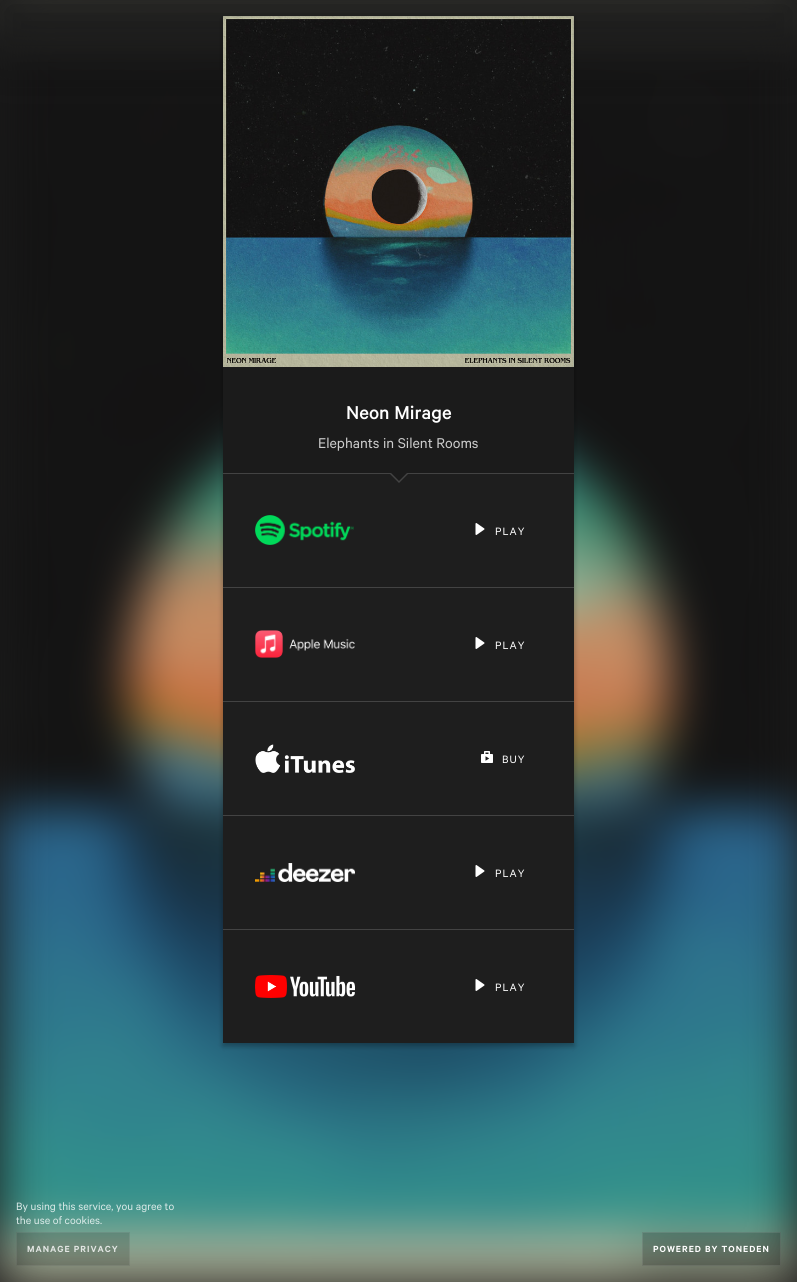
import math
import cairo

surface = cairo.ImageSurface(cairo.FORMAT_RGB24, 797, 1282)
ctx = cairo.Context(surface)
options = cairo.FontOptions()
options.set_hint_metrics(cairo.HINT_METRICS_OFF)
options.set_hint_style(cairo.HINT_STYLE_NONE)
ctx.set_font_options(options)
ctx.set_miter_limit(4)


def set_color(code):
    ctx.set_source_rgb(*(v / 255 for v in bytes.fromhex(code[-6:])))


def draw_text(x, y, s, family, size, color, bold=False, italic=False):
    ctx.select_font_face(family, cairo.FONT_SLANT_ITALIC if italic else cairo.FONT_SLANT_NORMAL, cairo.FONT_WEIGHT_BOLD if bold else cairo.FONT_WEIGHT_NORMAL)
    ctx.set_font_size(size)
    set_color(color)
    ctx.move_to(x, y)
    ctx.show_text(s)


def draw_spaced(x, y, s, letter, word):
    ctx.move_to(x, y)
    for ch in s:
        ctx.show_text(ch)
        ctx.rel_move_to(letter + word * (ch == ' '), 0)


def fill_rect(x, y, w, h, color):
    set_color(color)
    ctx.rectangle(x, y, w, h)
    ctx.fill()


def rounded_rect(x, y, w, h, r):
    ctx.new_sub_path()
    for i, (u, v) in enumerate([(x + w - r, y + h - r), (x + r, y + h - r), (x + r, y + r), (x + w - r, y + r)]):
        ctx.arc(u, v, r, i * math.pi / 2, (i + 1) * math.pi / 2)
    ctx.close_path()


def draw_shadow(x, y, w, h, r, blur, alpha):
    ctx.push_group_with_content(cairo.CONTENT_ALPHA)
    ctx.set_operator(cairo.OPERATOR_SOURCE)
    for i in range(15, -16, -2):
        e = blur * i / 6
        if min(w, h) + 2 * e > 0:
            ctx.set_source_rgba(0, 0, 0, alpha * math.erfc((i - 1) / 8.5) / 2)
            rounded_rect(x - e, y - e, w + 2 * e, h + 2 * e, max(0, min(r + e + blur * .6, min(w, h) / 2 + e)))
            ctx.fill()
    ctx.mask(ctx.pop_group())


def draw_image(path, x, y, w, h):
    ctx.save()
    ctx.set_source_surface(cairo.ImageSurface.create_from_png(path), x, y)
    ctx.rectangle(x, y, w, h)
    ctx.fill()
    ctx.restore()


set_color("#1b1b1b")
ctx.paint()
draw_image("assets/img1.png", 0, 0, 797, 1282)
draw_shadow(0, 0, 797, 50, 0, 25, 1)
set_color("#000000")
draw_shadow(223, 19, 351, 1027, 0, 3, 0.21)
draw_shadow(223, 19, 351, 1027, 0, 3, 0.12)
draw_image("assets/img2.png", 223, 16, 351, 351)
fill_rect(223, 367, 351, 106, "#1b1b1b")
draw_text(346, 419, "Neon Mirage", "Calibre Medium", 21, "#ffffff")
draw_text(318, 448, "Elephants in Silent Rooms", "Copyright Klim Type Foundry", 16, "#cccccc")
fill_rect(223, 474, 351, 569, "#1e1e1e")
fill_rect(223, 473, 351, 1, "#434343")
ctx.new_path()
ctx.move_to(389, 473)
ctx.line_to(409, 473)
ctx.line_to(399, 483)
ctx.close_path()
ctx.fill()
set_color("#1b1b1b")
ctx.new_path()
ctx.move_to(391, 473)
ctx.line_to(407, 473)
ctx.line_to(399, 481)
ctx.close_path()
ctx.fill()
fill_rect(223, 587, 351, 1, "#434343")
draw_image("assets/img3.png", 255, 515, 99, 30)
draw_image("assets/img4.png", 475, 523, 10, 12)
ctx.set_font_size(12)
set_color("#ffffff")
draw_spaced(495, 535, "PLAY", 1, 0)
fill_rect(223, 701, 351, 1, "#434343")
draw_image("assets/img5.png", 255, 630, 100, 28)
draw_image("assets/img4.png", 475, 637, 10, 12)
set_color("#ffffff")
draw_spaced(495, 649, "PLAY", 1, 0)
fill_rect(223, 815, 351, 1, "#434343")
draw_image("assets/img6.png", 255, 744, 100, 29)
draw_image("assets/img7.png", 481, 751, 12, 12)
set_color("#ffffff")
draw_spaced(502, 763, "BUY", 1, 0)
fill_rect(223, 929, 351, 1, "#434343")
draw_image("assets/img8.png", 255, 863, 100, 19)
draw_image("assets/img4.png", 475, 865, 10, 12)
set_color("#ffffff")
draw_spaced(495, 877, "PLAY", 1, 0)
draw_image("assets/img9.png", 255, 975, 100, 23)
draw_image("assets/img4.png", 475, 979, 10, 12)
draw_spaced(495, 991, "PLAY", 1, 0)
draw_text(16, 1210, "By using this service, you agree to", "Copyright Klim Type Foundry", 12, "#daeae8")
draw_text(16, 1224, "the use of cookies.", "Copyright Klim Type Foundry", 12, "#daeae8")
ctx.set_source_rgba(0, 0, 0, 0.16)
ctx.rectangle(16, 1232, 114, 34)
ctx.fill()
ctx.rectangle(16.5, 1232.5, 113, 33)
ctx.set_source_rgba(1, 1, 1, 0.08)
ctx.set_line_width(1)
ctx.stroke()
ctx.select_font_face("Calibre SemiBold")
ctx.set_font_size(10)
set_color("#e2e6e3")
draw_spaced(27, 1252, "MANAGE PRIVACY", 1, 0)
ctx.set_source_rgba(0, 0, 0, 0.2)
ctx.rectangle(642, 1232, 139, 34)
ctx.fill()
ctx.rectangle(642.5, 1232.5, 138, 33)
ctx.set_source_rgba(1, 1, 1, 0.1)
ctx.stroke()
set_color("#ffffff")
draw_spaced(653, 1252, "POWERED BY TONEDEN", 1, 0)
surface.write_to_png("output.png")
